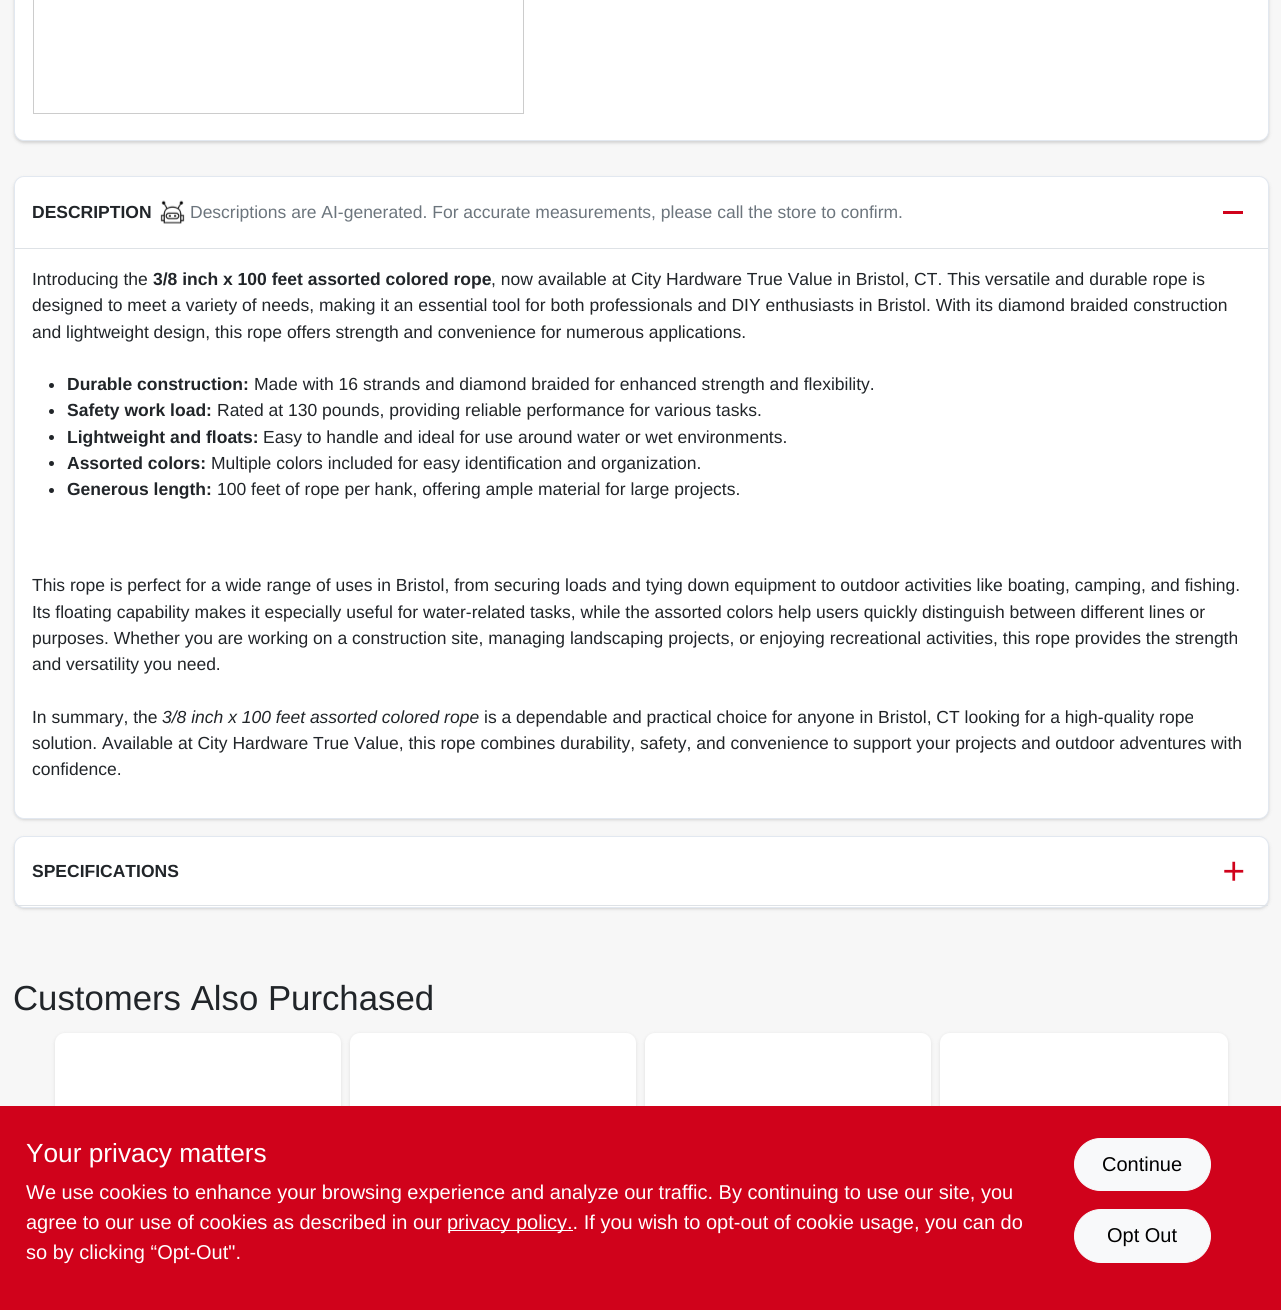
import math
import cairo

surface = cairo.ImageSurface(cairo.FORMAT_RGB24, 1281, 1310)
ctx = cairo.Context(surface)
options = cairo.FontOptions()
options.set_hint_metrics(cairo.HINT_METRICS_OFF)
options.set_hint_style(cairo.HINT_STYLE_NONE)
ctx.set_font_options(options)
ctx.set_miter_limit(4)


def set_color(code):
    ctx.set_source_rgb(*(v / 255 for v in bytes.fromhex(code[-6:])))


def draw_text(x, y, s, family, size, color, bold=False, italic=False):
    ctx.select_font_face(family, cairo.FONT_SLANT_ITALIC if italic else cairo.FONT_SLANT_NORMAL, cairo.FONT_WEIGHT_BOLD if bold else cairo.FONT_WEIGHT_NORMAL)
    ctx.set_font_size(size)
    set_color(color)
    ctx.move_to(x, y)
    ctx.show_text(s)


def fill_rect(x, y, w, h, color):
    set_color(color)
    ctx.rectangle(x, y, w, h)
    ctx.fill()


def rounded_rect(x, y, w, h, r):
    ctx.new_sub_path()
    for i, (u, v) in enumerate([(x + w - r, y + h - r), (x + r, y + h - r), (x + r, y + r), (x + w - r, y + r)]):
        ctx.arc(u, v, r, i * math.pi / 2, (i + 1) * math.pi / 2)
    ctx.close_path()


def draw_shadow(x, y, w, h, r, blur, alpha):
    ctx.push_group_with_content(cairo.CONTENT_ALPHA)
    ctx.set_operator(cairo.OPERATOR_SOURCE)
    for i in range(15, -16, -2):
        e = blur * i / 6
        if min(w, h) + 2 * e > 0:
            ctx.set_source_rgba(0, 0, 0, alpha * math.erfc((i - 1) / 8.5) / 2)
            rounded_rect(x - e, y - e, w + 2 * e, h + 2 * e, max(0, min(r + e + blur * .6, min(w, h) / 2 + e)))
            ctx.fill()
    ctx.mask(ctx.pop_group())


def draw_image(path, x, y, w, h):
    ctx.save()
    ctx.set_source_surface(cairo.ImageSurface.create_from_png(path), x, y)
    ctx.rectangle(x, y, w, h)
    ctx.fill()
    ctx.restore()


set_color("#f7f7f7")
ctx.paint()
set_color("#000000")
draw_shadow(14, -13, 1255, 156, 10, 1, 0.06)
draw_shadow(14, -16, 1255, 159, 10, 2, 0.1)
set_color("#ffffff")
rounded_rect(14.5, -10.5, 1254, 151, 9.5)
ctx.fill_preserve()
set_color("#e2e8f0")
ctx.set_line_width(1)
ctx.stroke()
ctx.rectangle(33.5, -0.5, 490, 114)
set_color("#cccccc")
ctx.stroke()
set_color("#000000")
draw_shadow(14, 178, 1255, 642, 10, 1, 0.06)
draw_shadow(14, 178, 1255, 642, 10, 2, 0.1)
set_color("#ffffff")
rounded_rect(14.5, 176.5, 1254, 642, 9.5)
ctx.fill_preserve()
set_color("#e2e8f0")
ctx.stroke()
fill_rect(15, 248, 1253, 1, "#dee2e6")
draw_text(32, 218, "DESCRIPTION", "Liberation Sans", 17.5, "#212529", bold=True)
draw_image("assets/img1.png", 160, 200, 25, 24)
draw_text(190, 218, "Descriptions are AI-generated. For accurate measurements, please call the store to confirm.", "Liberation Sans", 17.5, "#6c757d")
fill_rect(1223, 211, 20, 3, "#d0021b")
draw_text(32, 285, "Introducing the", "Liberation Sans", 17.5, "#212529")
draw_text(153, 285, "3/8 inch x 100 feet assorted colored rope", "Liberation Sans", 17.5, "#212529", bold=True)
draw_text(491, 285, ", now available at City Hardware True Value in Bristol, CT. This versatile and durable rope is", "Liberation Sans", 17.5, "#212529")
draw_text(32, 311, "designed to meet a variety of needs, making it an essential tool for both professionals and DIY enthusiasts in Bristol. With its diamond braided construction", "Liberation Sans", 17.5, "#212529")
draw_text(32, 338, "and lightweight design, this rope offers strength and convenience for numerous applications.", "Liberation Sans", 17.5, "#212529")
ctx.new_path()
ctx.arc(51.5, 385.5, 2.5, 0, 2 * math.pi)
ctx.fill()
draw_text(67, 390, "Durable construction:", "Liberation Sans", 17.5, "#212529", bold=True)
draw_text(254, 390, "Made with 16 strands and diamond braided for enhanced strength and flexibility.", "Liberation Sans", 17.5, "#212529")
ctx.new_path()
ctx.arc(51.5, 411.5, 2.5, 0, 2 * math.pi)
ctx.fill()
draw_text(67, 416, "Safety work load:", "Liberation Sans", 17.5, "#212529", bold=True)
draw_text(217, 416, "Rated at 130 pounds, providing reliable performance for various tasks.", "Liberation Sans", 17.5, "#212529")
ctx.new_path()
ctx.arc(51.5, 437.5, 2.5, 0, 2 * math.pi)
ctx.fill()
draw_text(67, 443, "Lightweight and floats:", "Liberation Sans", 17.5, "#212529", bold=True)
draw_text(263, 443, "Easy to handle and ideal for use around water or wet environments.", "Liberation Sans", 17.5, "#212529")
ctx.new_path()
ctx.arc(51.5, 463.5, 2.5, 0, 2 * math.pi)
ctx.fill()
draw_text(67, 469, "Assorted colors:", "Liberation Sans", 17.5, "#212529", bold=True)
draw_text(211, 469, "Multiple colors included for easy identification and organization.", "Liberation Sans", 17.5, "#212529")
ctx.new_path()
ctx.arc(51.5, 490.5, 2.5, 0, 2 * math.pi)
ctx.fill()
draw_text(67, 495, "Generous length:", "Liberation Sans", 17.5, "#212529", bold=True)
draw_text(217, 495, "100 feet of rope per hank, offering ample material for large projects.", "Liberation Sans", 17.5, "#212529")
draw_text(32, 591, "This rope is perfect for a wide range of uses in Bristol, from securing loads and tying down equipment to outdoor activities like boating, camping, and fishing.", "Liberation Sans", 17.5, "#212529")
draw_text(32, 618, "Its floating capability makes it especially useful for water-related tasks, while the assorted colors help users quickly distinguish between different lines or", "Liberation Sans", 17.5, "#212529")
draw_text(32, 644, "purposes. Whether you are working on a construction site, managing landscaping projects, or enjoying recreational activities, this rope provides the strength", "Liberation Sans", 17.5, "#212529")
draw_text(32, 670, "and versatility you need.", "Liberation Sans", 17.5, "#212529")
draw_text(32, 723, "In summary, the", "Liberation Sans", 17.5, "#212529")
draw_text(162, 723, "3/8 inch x 100 feet assorted colored rope", "Liberation Sans", 17.5, "#212529", italic=True)
draw_text(484, 723, "is a dependable and practical choice for anyone in Bristol, CT looking for a high-quality rope", "Liberation Sans", 17.5, "#212529")
draw_text(32, 749, "solution. Available at City Hardware True Value, this rope combines durability, safety, and convenience to support your projects and outdoor adventures with", "Liberation Sans", 17.5, "#212529")
draw_text(32, 775, "confidence.", "Liberation Sans", 17.5, "#212529")
set_color("#000000")
draw_shadow(14, 838, 1255, 71, 10, 1, 0.06)
draw_shadow(14, 838, 1255, 71, 10, 2, 0.1)
set_color("#ffffff")
rounded_rect(14.5, 836.5, 1254, 71, 9.5)
ctx.fill_preserve()
set_color("#e2e8f0")
ctx.stroke()
fill_rect(15, 905, 1253, 1, "#dee2e6")
draw_text(32, 877, "SPECIFICATIONS", "Liberation Sans", 17.5, "#212529", bold=True)
draw_image("assets/img2.png", 1224, 861, 20, 20)
draw_text(13, 1010, "Customers Also Purchased", "Liberation Sans", 34.75, "#212529")
set_color("#000000")
draw_shadow(55, 1034, 286, 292, 10, 2, 0.1)
set_color("#ffffff")
rounded_rect(55, 1033, 286, 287, 10)
ctx.fill()
set_color("#000000")
draw_shadow(350, 1034, 286, 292, 10, 2, 0.1)
set_color("#ffffff")
rounded_rect(350, 1033, 286, 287, 10)
ctx.fill()
set_color("#000000")
draw_shadow(645, 1034, 286, 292, 10, 2, 0.1)
set_color("#ffffff")
rounded_rect(645, 1033, 286, 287, 10)
ctx.fill()
set_color("#000000")
draw_shadow(940, 1034, 288, 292, 10, 2, 0.1)
set_color("#ffffff")
rounded_rect(940, 1033, 288, 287, 10)
ctx.fill()
fill_rect(0, 1106, 1281, 204, "#d0021b")
draw_text(26, 1162, "Your privacy matters", "Liberation Sans", 26.25, "#ffffff")
draw_text(26, 1199, "We use cookies to enhance your browsing experience and analyze our traffic. By continuing to use our site, you", "Liberation Sans", 20, "#ffffff")
draw_text(26, 1229, "agree to our use of cookies as described in our", "Liberation Sans", 20, "#ffffff")
fill_rect(448, 1230, 125, 1, "#ffffff")
draw_text(447, 1229, "privacy policy.. If you wish to opt-out of cookie usage, you can do", "Liberation Sans", 20, "#ffffff")
draw_text(26, 1259, "so by clicking “Opt-Out\".", "Liberation Sans", 20, "#ffffff")
set_color("#f8f9fa")
rounded_rect(1074.5, 1138.5, 136, 52, 26)
ctx.fill_preserve()
ctx.stroke()
draw_text(1102, 1171, "Continue", "Liberation Sans", 20, "#000000")
set_color("#f8f9fa")
rounded_rect(1074.5, 1209.5, 136, 53, 26.5)
ctx.fill_preserve()
ctx.stroke()
draw_text(1107, 1242, "Opt Out", "Liberation Sans", 20, "#000000")
surface.write_to_png("output.png")
